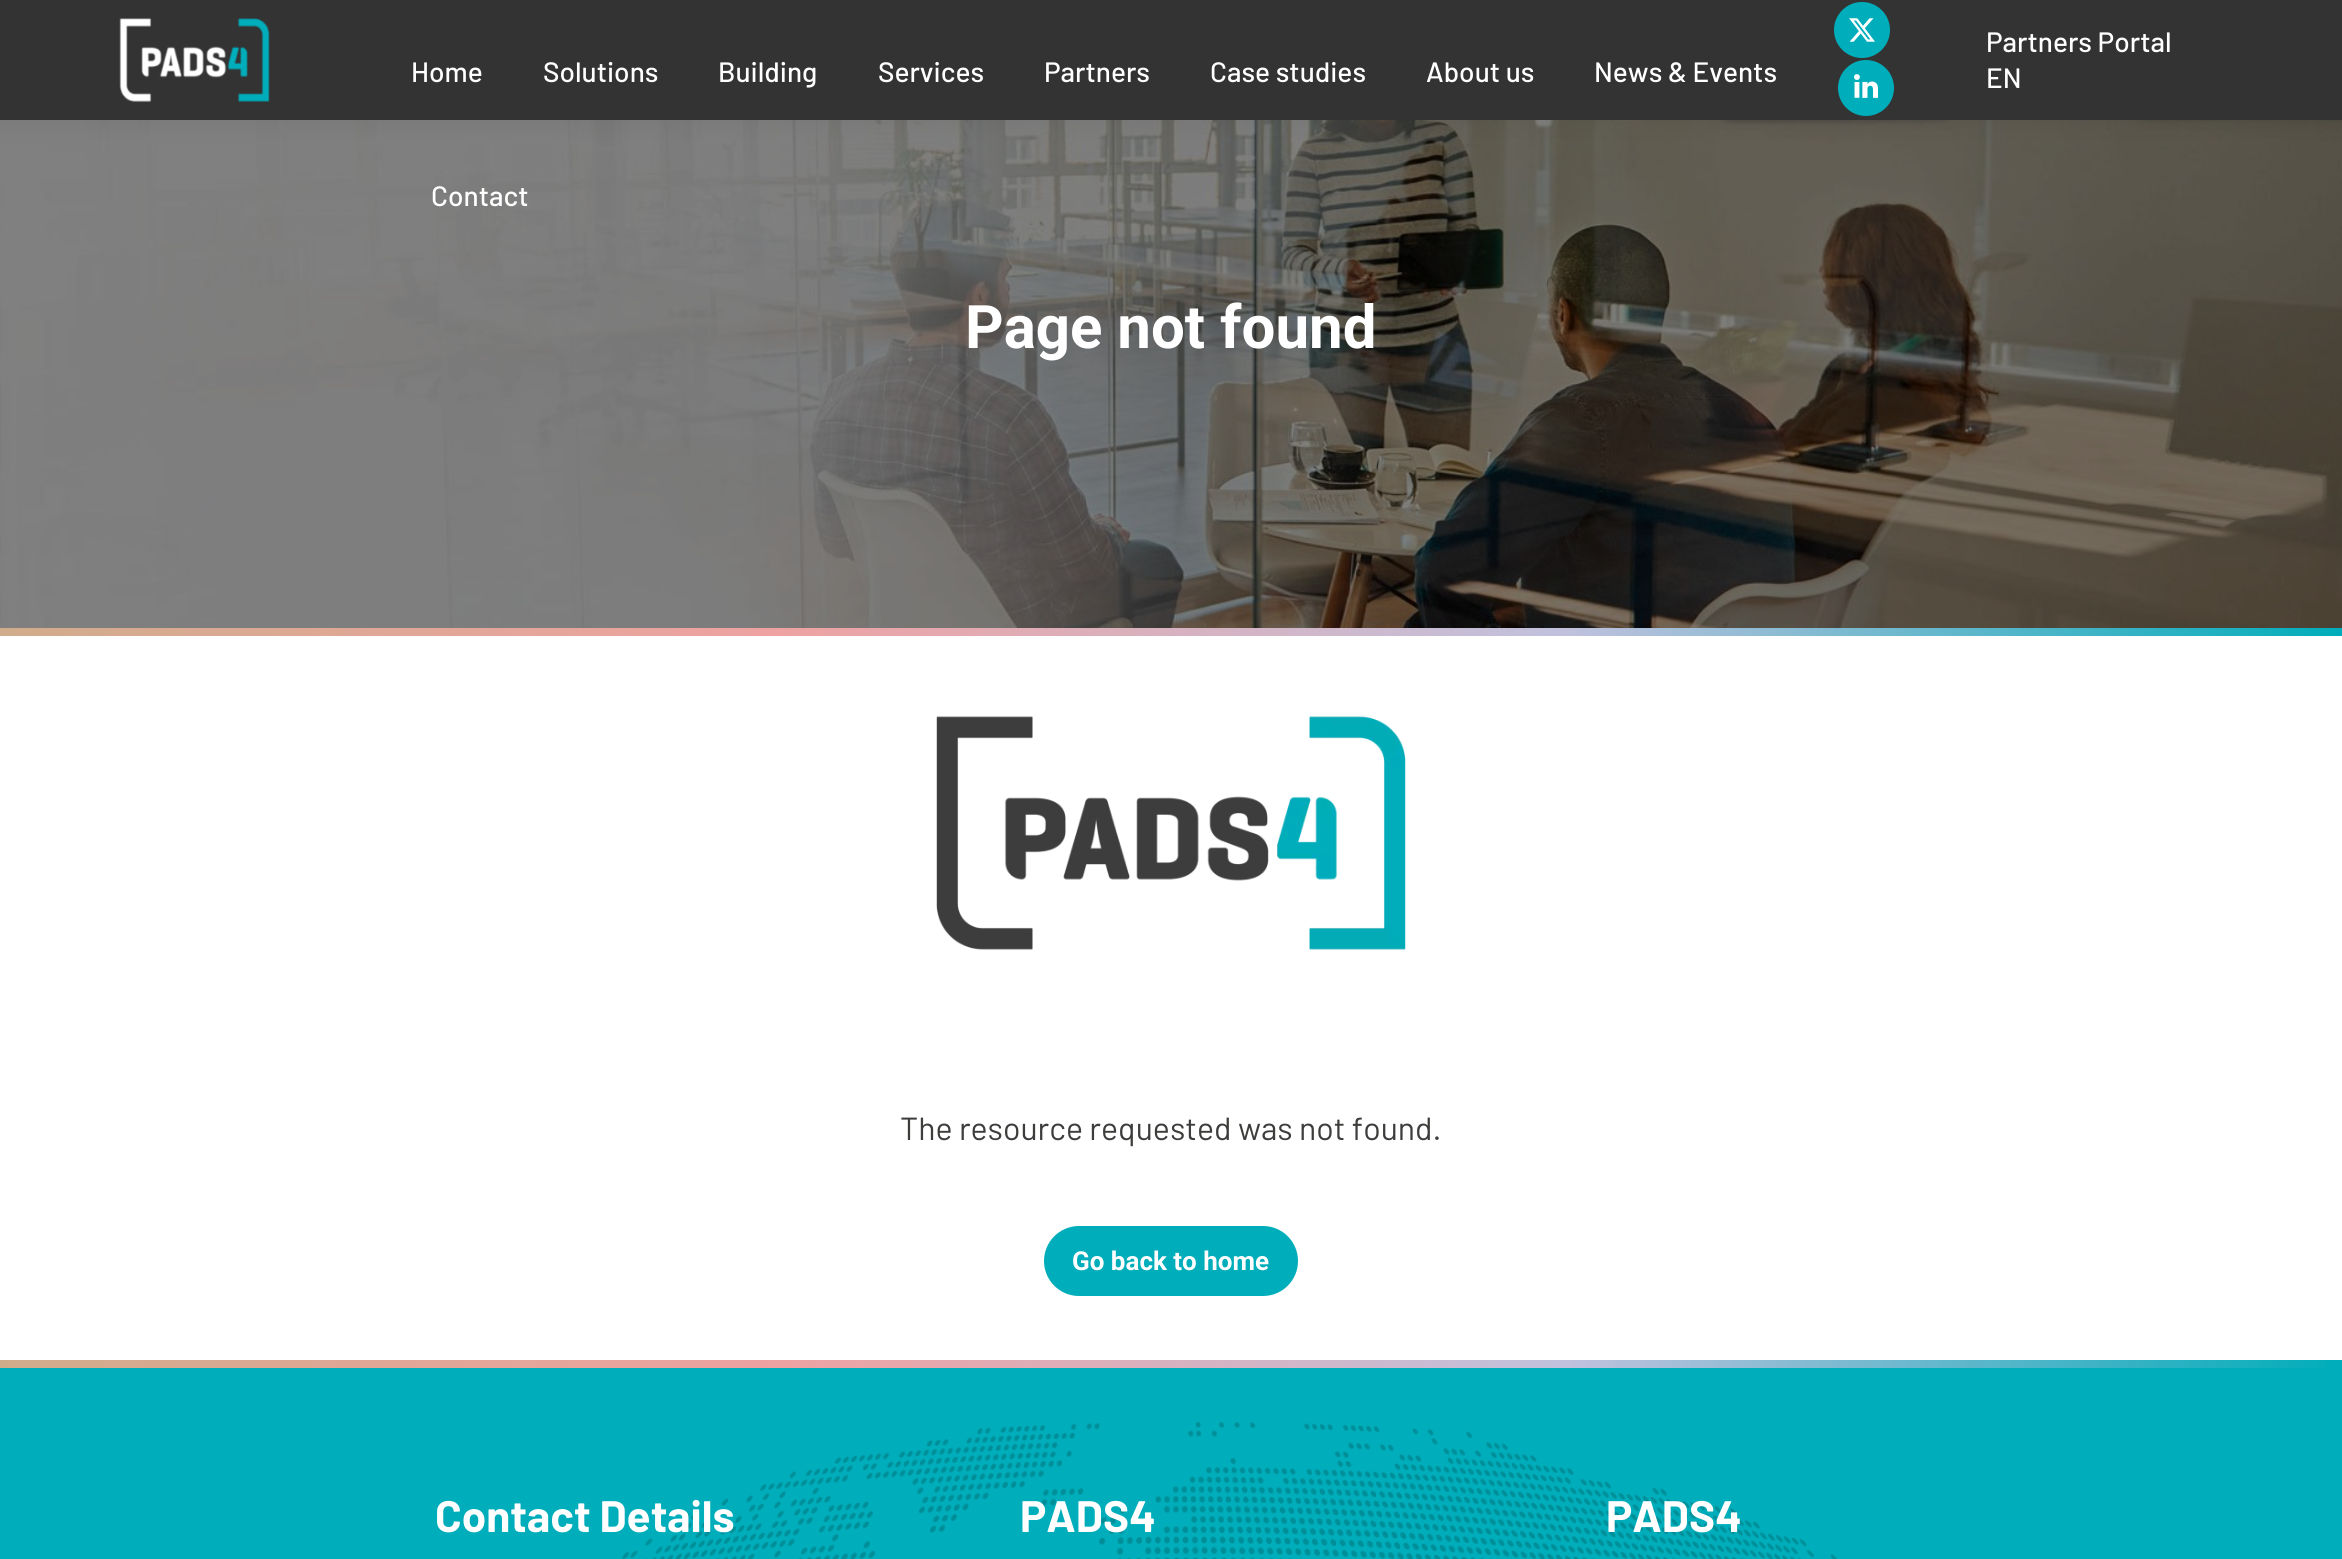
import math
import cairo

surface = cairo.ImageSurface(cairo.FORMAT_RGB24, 2342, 1559)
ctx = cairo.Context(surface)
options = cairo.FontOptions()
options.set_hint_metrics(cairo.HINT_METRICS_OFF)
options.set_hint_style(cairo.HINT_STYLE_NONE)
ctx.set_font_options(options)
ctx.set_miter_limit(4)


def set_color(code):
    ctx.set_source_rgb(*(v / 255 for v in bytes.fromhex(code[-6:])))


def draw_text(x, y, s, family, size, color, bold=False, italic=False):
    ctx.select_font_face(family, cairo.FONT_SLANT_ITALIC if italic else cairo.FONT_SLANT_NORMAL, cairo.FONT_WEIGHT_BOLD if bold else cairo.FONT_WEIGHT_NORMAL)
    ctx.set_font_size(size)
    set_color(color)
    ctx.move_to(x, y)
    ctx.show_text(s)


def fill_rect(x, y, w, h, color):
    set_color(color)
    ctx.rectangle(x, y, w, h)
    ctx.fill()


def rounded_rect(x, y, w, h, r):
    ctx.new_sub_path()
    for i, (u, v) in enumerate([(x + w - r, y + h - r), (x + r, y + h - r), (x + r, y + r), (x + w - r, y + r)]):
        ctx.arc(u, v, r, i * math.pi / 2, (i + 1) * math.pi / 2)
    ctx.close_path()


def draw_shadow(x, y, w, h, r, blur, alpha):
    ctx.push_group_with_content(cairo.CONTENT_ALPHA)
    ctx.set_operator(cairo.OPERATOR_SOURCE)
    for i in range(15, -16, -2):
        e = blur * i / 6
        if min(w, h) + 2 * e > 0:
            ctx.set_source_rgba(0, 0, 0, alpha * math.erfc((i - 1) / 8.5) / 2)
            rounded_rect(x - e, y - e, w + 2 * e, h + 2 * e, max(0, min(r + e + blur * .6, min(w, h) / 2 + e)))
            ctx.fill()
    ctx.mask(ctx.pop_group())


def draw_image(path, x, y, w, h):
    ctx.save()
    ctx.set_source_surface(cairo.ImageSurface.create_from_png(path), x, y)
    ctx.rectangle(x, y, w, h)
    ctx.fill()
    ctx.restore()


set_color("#ffffff")
ctx.paint()
draw_image("assets/img4.png", 0, 120, 2342, 508)
set_color("#000000")
draw_shadow(-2, -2, 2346, 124, 0, 15, 0.07)
fill_rect(0, 0, 2342, 120, "#333333")
draw_image("assets/img1.png", 119, 18, 151, 84)
draw_text(411, 82, "Home", "Barlow Medium", 28, "#ffffff")
draw_text(543, 82, "Solutions", "Barlow Medium", 28, "#ffffff")
draw_text(718, 82, "Building", "Barlow Medium", 28, "#ffffff")
draw_text(878, 82, "Services", "Barlow Medium", 28, "#ffffff")
draw_text(1044, 82, "Partners", "Barlow Medium", 28, "#ffffff")
draw_text(1210, 82, "Case studies", "Barlow Medium", 28, "#ffffff")
draw_text(1426, 82, "About us", "Barlow Medium", 28, "#ffffff")
draw_text(1594, 82, "News & Events", "Barlow Medium", 28, "#ffffff")
draw_text(431, 206, "Contact", "Barlow Medium", 28, "#ffffff")
set_color("#00adba")
ctx.new_path()
ctx.arc(1862, 30, 28, 0, 2 * math.pi)
ctx.fill()
draw_image("assets/img2.png", 1849, 18, 26, 24)
ctx.arc(1866, 88, 28, 0, 2 * math.pi)
ctx.fill()
draw_image("assets/img3.png", 1854, 74, 24, 24)
draw_text(1986, 52, "Partners Portal", "Barlow Medium", 28, "#ffffff")
draw_text(1986, 88, "EN", "Barlow Medium", 28, "#ffffff")
draw_image("assets/img5.png", 0, 628, 2342, 8)
draw_text(965, 348, "Page not found", "Roboto", 60, "#ffffff", bold=True)
draw_image("assets/img6.png", 936, 716, 470, 234)
draw_text(900, 1140, "The resource requested was not found.", "Barlow", 32, "#3d3d3b")
set_color("#00adba")
rounded_rect(1044, 1226, 254, 70, 35)
ctx.fill()
draw_text(1072, 1270, "Go back to home", "Roboto", 26, "#ffffff", bold=True)
fill_rect(0, 1360, 2342, 199, "#00adba")
draw_image("assets/img7.png", 622, 1422, 1215, 137)
draw_image("assets/img8.png", 0, 1360, 2326, 8)
draw_text(435, 1532, "Contact Details", "Barlow", 44, "#ffffff", bold=True)
draw_text(1020, 1532, "PADS4", "Barlow", 44, "#ffffff", bold=True)
draw_text(1606, 1532, "PADS4", "Barlow", 44, "#ffffff", bold=True)
surface.write_to_png("output.png")
